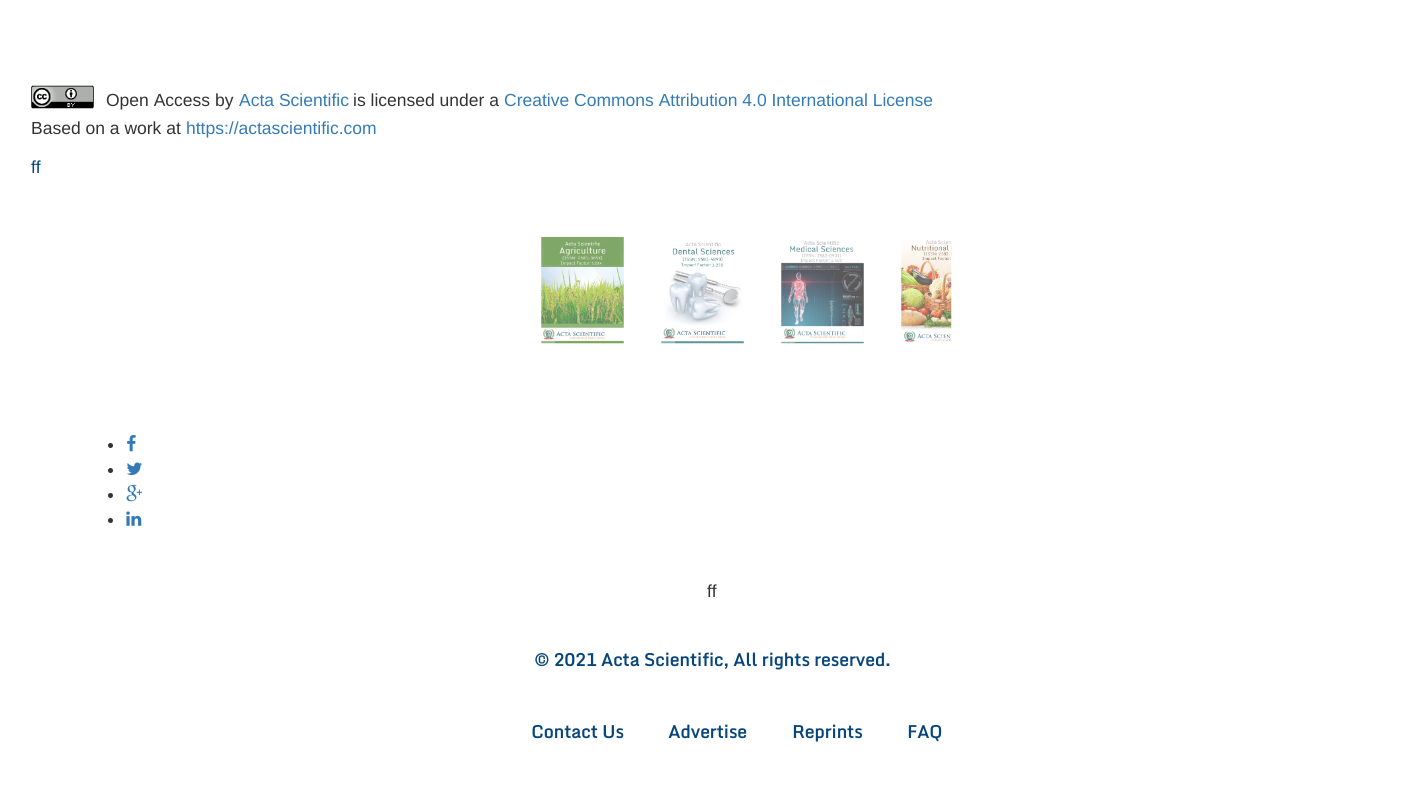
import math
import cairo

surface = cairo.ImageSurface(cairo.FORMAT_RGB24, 1423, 788)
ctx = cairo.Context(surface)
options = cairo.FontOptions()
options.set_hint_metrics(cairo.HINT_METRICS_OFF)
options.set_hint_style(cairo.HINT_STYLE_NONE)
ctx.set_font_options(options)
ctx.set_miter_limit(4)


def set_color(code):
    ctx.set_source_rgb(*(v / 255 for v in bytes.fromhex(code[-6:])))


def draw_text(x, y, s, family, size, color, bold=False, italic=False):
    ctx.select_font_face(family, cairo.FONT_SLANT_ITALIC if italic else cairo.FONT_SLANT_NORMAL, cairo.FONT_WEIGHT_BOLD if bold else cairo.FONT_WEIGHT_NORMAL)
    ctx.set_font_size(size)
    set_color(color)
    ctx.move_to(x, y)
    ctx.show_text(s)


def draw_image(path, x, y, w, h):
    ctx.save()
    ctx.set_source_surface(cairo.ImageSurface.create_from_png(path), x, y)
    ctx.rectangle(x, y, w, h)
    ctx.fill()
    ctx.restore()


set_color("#ffffff")
ctx.paint()
draw_image("assets/img1.png", 31, 85, 63, 24)
draw_text(106, 106, "Open Access by", "Liberation Sans", 17.5, "#333333")
draw_text(239, 106, "Acta Scientific", "Liberation Sans", 17.5, "#337ab7")
draw_text(353, 106, "is licensed under a", "Liberation Sans", 17.5, "#333333")
draw_text(504, 106, "Creative Commons Attribution 4.0 International License", "Liberation Sans", 17.5, "#337ab7")
draw_text(31, 134, "Based on a work at", "Liberation Sans", 17.5, "#333333")
draw_text(186, 134, "https://actascientific.com", "Liberation Sans", 17.5, "#337ab7")
draw_text(31, 173, "ff", "Liberation Sans", 17.5, "#07467b")
draw_image("assets/img2.png", 541, 237, 83, 107)
draw_image("assets/img3.png", 661, 242, 83, 102)
draw_image("assets/img4.png", 781, 241, 83, 103)
draw_image("assets/img5.png", 901, 240, 51, 102)
set_color("#333333")
ctx.arc(110.5, 445.5, 2.5, 0, 2 * math.pi)
ctx.fill()
draw_image("assets/img6.png", 127, 435, 9, 17)
ctx.arc(110.5, 470.5, 2.5, 0, 2 * math.pi)
ctx.fill()
draw_image("assets/img7.png", 126, 462, 16, 13)
ctx.arc(110.5, 495.5, 2.5, 0, 2 * math.pi)
ctx.fill()
draw_image("assets/img8.png", 126, 485, 16, 17)
ctx.arc(110.5, 520.5, 2.5, 0, 2 * math.pi)
ctx.fill()
draw_image("assets/img9.png", 126, 511, 16, 15)
draw_text(707, 597, "ff", "Liberation Sans", 17.5, "#333333")
draw_text(534, 666, "© 2021 Acta Scientific, All rights reserved.", "Monda", 17.5, "#07467b", bold=True)
draw_text(531, 738, "Contact Us", "Monda", 17.5, "#07467b", bold=True)
draw_text(668, 738, "Advertise", "Monda", 17.5, "#07467b", bold=True)
draw_text(792, 738, "Reprints", "Monda", 17.5, "#07467b", bold=True)
draw_text(907, 738, "FAQ", "Monda", 17.5, "#07467b", bold=True)
surface.write_to_png("output.png")
